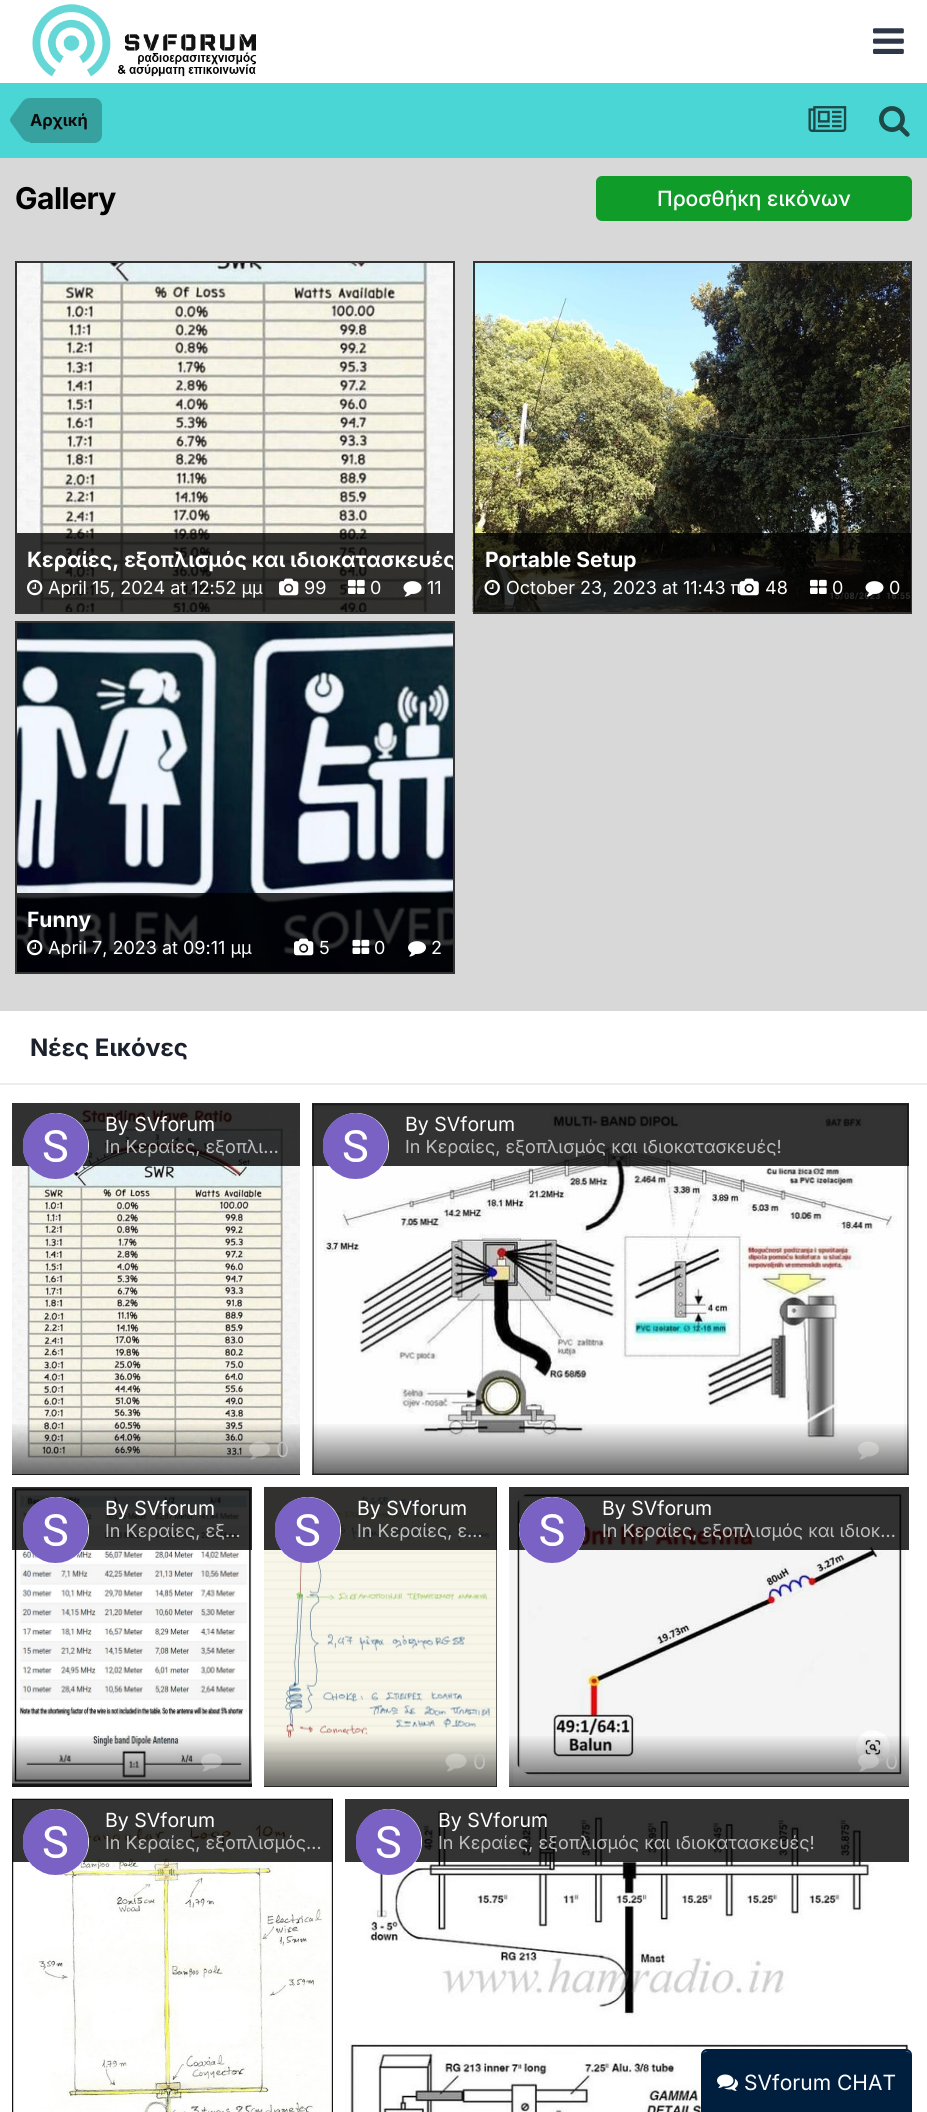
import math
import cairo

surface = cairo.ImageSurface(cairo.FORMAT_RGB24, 927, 2112)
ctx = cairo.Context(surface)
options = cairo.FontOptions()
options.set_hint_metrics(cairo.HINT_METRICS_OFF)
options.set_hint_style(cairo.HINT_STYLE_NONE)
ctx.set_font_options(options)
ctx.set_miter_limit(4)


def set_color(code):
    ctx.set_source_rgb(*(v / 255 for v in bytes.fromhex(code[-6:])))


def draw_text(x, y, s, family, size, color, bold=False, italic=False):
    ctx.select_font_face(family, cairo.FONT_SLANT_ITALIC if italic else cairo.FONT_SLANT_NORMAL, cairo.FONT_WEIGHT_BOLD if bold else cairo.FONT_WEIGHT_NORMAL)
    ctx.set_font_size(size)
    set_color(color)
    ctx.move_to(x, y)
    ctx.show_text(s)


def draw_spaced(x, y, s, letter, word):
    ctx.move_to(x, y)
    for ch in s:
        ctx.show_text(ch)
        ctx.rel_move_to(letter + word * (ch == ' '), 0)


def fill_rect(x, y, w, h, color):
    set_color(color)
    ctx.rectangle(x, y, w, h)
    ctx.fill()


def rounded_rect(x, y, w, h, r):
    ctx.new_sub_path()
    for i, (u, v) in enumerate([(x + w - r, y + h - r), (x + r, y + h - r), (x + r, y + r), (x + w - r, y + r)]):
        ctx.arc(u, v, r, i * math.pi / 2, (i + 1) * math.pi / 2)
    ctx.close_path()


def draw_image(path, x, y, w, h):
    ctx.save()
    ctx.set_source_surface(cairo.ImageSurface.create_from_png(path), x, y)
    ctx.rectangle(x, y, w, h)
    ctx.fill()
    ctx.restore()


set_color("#d8d8d8")
ctx.paint()
fill_rect(0, 0, 927, 83, "#ffffff")
draw_image("assets/img1.png", 32, 4, 225, 73)
draw_image("assets/img2.png", 873, 28, 31, 26)
fill_rect(0, 83, 927, 75, "#49d6d5")
set_color("#37a1a0")
ctx.new_path()
ctx.move_to(30, 98)
ctx.line_to(94, 98)
ctx.curve_to(98.5, 98, 102, 101.5, 102, 106)
ctx.line_to(102, 135)
ctx.curve_to(102, 139.5, 98.5, 143, 94, 143)
ctx.line_to(30, 143)
ctx.close_path()
ctx.fill()
ctx.new_path()
ctx.move_to(30, 120)
ctx.line_to(30, 142)
ctx.curve_to(27, 142, 24.5, 141, 22, 138)
ctx.line_to(10.5, 122)
ctx.line_to(10, 120)
ctx.close_path()
ctx.move_to(30, 120)
ctx.line_to(10, 120)
ctx.line_to(10.5, 118)
ctx.line_to(22, 102)
ctx.curve_to(24.5, 99, 27, 98, 30, 98)
ctx.close_path()
ctx.fill()
draw_text(30, 126, "Αρχική", "Inter", 16.5, "#0b0b0b", bold=True)
draw_image("assets/img3.png", 808, 106, 39, 26)
draw_image("assets/img4.png", 879, 106, 31, 31)
ctx.set_font_size(30)
set_color("#000000")
draw_spaced(15, 209, "Gallery", -0.5, 0)
set_color("#109c29")
rounded_rect(596, 176, 316, 45, 6)
ctx.fill()
draw_text(657, 206, "Προσθήκη εικόνων", "Inter Medium", 21, "#ffffff")
draw_image("assets/img5.png", 17, 263, 436, 349)
ctx.rectangle(16, 262, 438, 351)
set_color("#333333")
ctx.stroke()
ctx.set_source_rgba(0, 0, 0, 0.8)
ctx.rectangle(17, 533, 436, 79)
ctx.fill()
ctx.save()
ctx.rectangle(27, 542, 426, 36)
ctx.clip()
draw_text(27, 567, "Κεραίες, εξοπλισμός και ιδιοκατασκευές", "Inter", 21, "#ffffff", bold=True)
ctx.restore()
draw_image("assets/img6.png", 27, 579, 16, 17)
draw_text(48, 594, "April 15, 2024 at 12:52 μμ", "Inter", 18, "#ffffff")
draw_image("assets/img7.png", 279, 578, 20, 18)
draw_text(304, 594, "99", "Inter", 18, "#ffffff")
draw_image("assets/img8.png", 348, 579, 17, 15)
draw_text(370, 594, "0", "Inter", 18, "#ffffff")
draw_image("assets/img9.png", 403, 581, 19, 16)
draw_text(427, 594, "11", "Inter", 18, "#ffffff")
draw_image("assets/img10.png", 472, 262, 438, 350)
ctx.rectangle(474, 262, 437, 351)
set_color("#333333")
ctx.stroke()
ctx.set_source_rgba(0, 0, 0, 0.8)
ctx.rectangle(474, 533, 437, 79)
ctx.fill()
draw_text(485, 567, "Portable Setup", "Inter", 21, "#ffffff", bold=True)
draw_image("assets/img11.png", 484, 579, 16, 17)
draw_image("assets/img12.png", 739, 578, 20, 18)
draw_text(506, 594, "October 23, 2023 at 11:43 π", "Inter", 18, "#ffffff")
draw_text(765, 594, "48", "Inter", 18, "#ffffff")
draw_image("assets/img13.png", 810, 579, 17, 15)
draw_text(832, 594, "0", "Inter", 18, "#ffffff")
draw_image("assets/img14.png", 865, 581, 19, 16)
draw_text(889, 594, "0", "Inter", 18, "#ffffff")
draw_image("assets/img15.png", 17, 623, 436, 349)
ctx.rectangle(16, 622, 438, 351)
set_color("#333333")
ctx.stroke()
ctx.set_source_rgba(0, 0, 0, 0.8)
ctx.rectangle(17, 893, 436, 79)
ctx.fill()
draw_text(27, 927, "Funny", "Inter", 21, "#ffffff", bold=True)
draw_image("assets/img16.png", 27, 939, 16, 17)
draw_text(48, 954, "April 7, 2023 at 09:11 μμ", "Inter", 18, "#ffffff")
draw_image("assets/img17.png", 294, 938, 20, 18)
draw_text(319, 954, "5", "Inter", 18, "#ffffff")
draw_image("assets/img18.png", 352, 939, 18, 15)
draw_text(374, 954, "0", "Inter", 18, "#ffffff")
draw_image("assets/img19.png", 408, 941, 18, 16)
draw_text(431, 954, "2", "Inter", 18, "#ffffff")
fill_rect(0, 1011, 927, 1101, "#ffffff")
fill_rect(0, 1083, 927, 2, "#eaecef")
draw_text(30, 1056, "Νέες Εικόνες", "Inter", 24, "#1a202c", bold=True)
fill_rect(12, 1474, 288, 1, "#333333")
draw_image("assets/img20.png", 12, 1102, 288, 373)
ctx.set_source_rgba(0, 0, 0, 0.8)
ctx.rectangle(12, 1103, 288, 63)
ctx.fill()
set_color("#ffffff")
ctx.arc(56, 1146, 33, 0, 2 * math.pi)
ctx.fill()
draw_image("assets/img21.png", 23, 1113, 66, 66)
draw_text(105, 1131, "By SVforum", "Inter", 19.5, "#ffffff")
draw_text(105, 1153, "In Κεραίες, εξοπλι…", "Inter", 18, "#bfbfbf")
gradient = cairo.LinearGradient(156, 1422, 156, 1475)
gradient.add_color_stop_rgba(0, 0, 0, 0, 0)
gradient.add_color_stop_rgba(1, 0, 0, 0, 0.6)
ctx.set_source(gradient)
ctx.rectangle(12, 1424, 288, 51)
ctx.fill()
draw_image("assets/img22.png", 249, 1441, 21, 19)
draw_text(276, 1457, "0", "Inter", 21, "#bfbfbf")
fill_rect(312, 1474, 597, 1, "#333333")
draw_image("assets/img23.png", 312, 1103, 597, 372)
ctx.set_source_rgba(0, 0, 0, 0.8)
ctx.rectangle(312, 1103, 597, 63)
ctx.fill()
set_color("#ffffff")
ctx.arc(356, 1146, 33, 0, 2 * math.pi)
ctx.fill()
draw_image("assets/img24.png", 323, 1113, 66, 66)
draw_text(405, 1131, "By SVforum", "Inter", 19.5, "#ffffff")
draw_text(405, 1153, "In Κεραίες, εξοπλισμός και ιδιοκατασκευές!", "Inter", 18, "#bfbfbf")
gradient = cairo.LinearGradient(611, 1422, 611, 1475)
gradient.add_color_stop_rgba(0, 0, 0, 0, 0)
gradient.add_color_stop_rgba(1, 0, 0, 0, 0.6)
ctx.set_source(gradient)
ctx.rectangle(312, 1424, 597, 51)
ctx.fill()
draw_image("assets/img25.png", 858, 1441, 21, 19)
fill_rect(12, 1783, 240, 4, "#333333")
draw_image("assets/img26.png", 12, 1487, 240, 297)
ctx.set_source_rgba(0, 0, 0, 0.8)
ctx.rectangle(12, 1487, 240, 63)
ctx.fill()
set_color("#ffffff")
ctx.arc(56, 1530, 33, 0, 2 * math.pi)
ctx.fill()
draw_image("assets/img27.png", 23, 1497, 66, 66)
draw_text(105, 1515, "By SVforum", "Inter", 19.5, "#ffffff")
draw_text(105, 1537, "In Κεραίες, εξ…", "Inter", 18, "#bfbfbf")
gradient = cairo.LinearGradient(132, 1734, 132, 1787)
gradient.add_color_stop_rgba(0, 0, 0, 0, 0)
gradient.add_color_stop_rgba(1, 0, 0, 0, 0.6)
ctx.set_source(gradient)
ctx.rectangle(12, 1736, 240, 51)
ctx.fill()
draw_image("assets/img28.png", 201, 1753, 21, 19)
fill_rect(264, 1487, 233, 300, "#333333")
draw_image("assets/img29.png", 264, 1486, 233, 301)
ctx.set_source_rgba(0, 0, 0, 0.8)
ctx.rectangle(264, 1487, 233, 63)
ctx.fill()
set_color("#ffffff")
ctx.arc(308, 1530, 33, 0, 2 * math.pi)
ctx.fill()
draw_image("assets/img30.png", 275, 1497, 66, 66)
draw_text(357, 1515, "By SVforum", "Inter", 19.5, "#ffffff")
draw_text(357, 1537, "In Κεραίες, ε…", "Inter", 18, "#bfbfbf")
gradient = cairo.LinearGradient(380, 1734, 380, 1787)
gradient.add_color_stop_rgba(0, 0, 0, 0, 0)
gradient.add_color_stop_rgba(1, 0, 0, 0, 0.6)
ctx.set_source(gradient)
ctx.rectangle(264, 1736, 233, 51)
ctx.fill()
draw_image("assets/img31.png", 445, 1753, 22, 19)
draw_text(473, 1769, "0", "Inter", 21, "#bfbfbf")
fill_rect(509, 1786, 400, 1, "#333333")
draw_image("assets/img32.png", 509, 1487, 400, 300)
ctx.set_source_rgba(0, 0, 0, 0.8)
ctx.rectangle(509, 1487, 400, 63)
ctx.fill()
set_color("#ffffff")
ctx.arc(552, 1530, 33, 0, 2 * math.pi)
ctx.fill()
draw_image("assets/img33.png", 519, 1497, 66, 66)
draw_text(602, 1515, "By SVforum", "Inter", 19.5, "#ffffff")
draw_text(602, 1537, "In Κεραίες, εξοπλισμός και ιδιοκ…", "Inter", 18, "#bfbfbf")
gradient = cairo.LinearGradient(709, 1734, 709, 1787)
gradient.add_color_stop_rgba(0, 0, 0, 0, 0)
gradient.add_color_stop_rgba(1, 0, 0, 0, 0.6)
ctx.set_source(gradient)
ctx.rectangle(509, 1736, 400, 51)
ctx.fill()
draw_image("assets/img34.png", 858, 1753, 21, 19)
draw_text(885, 1769, "0", "Inter", 21, "#bfbfbf")
draw_image("assets/img35.png", 12, 1798, 321, 314)
ctx.set_source_rgba(0, 0, 0, 0.8)
ctx.rectangle(12, 1799, 321, 63)
ctx.fill()
set_color("#ffffff")
ctx.arc(56, 1842, 33, 0, 2 * math.pi)
ctx.fill()
draw_image("assets/img36.png", 23, 1809, 66, 66)
draw_text(105, 1827, "By SVforum", "Inter", 19.5, "#ffffff")
draw_text(105, 1849, "In Κεραίες, εξοπλισμός…", "Inter", 18, "#bfbfbf")
draw_image("assets/img37.png", 345, 1799, 564, 313)
ctx.set_source_rgba(0, 0, 0, 0.8)
ctx.rectangle(345, 1799, 564, 63)
ctx.fill()
set_color("#ffffff")
ctx.arc(389, 1842, 33, 0, 2 * math.pi)
ctx.fill()
draw_image("assets/img38.png", 356, 1809, 66, 66)
draw_text(438, 1827, "By SVforum", "Inter", 19.5, "#ffffff")
draw_text(438, 1849, "In Κεραίες, εξοπλισμός και ιδιοκατασκευές!", "Inter", 18, "#bfbfbf")
set_color("#ffffff")
rounded_rect(702, 2050, 209, 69, 5)
ctx.fill_preserve()
set_color("#001f3f")
ctx.stroke()
ctx.new_path()
ctx.move_to(708, 2051)
ctx.line_to(905, 2051)
ctx.curve_to(908.5, 2051, 911, 2053.5, 911, 2057)
ctx.line_to(911, 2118)
ctx.line_to(702, 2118)
ctx.line_to(702, 2057)
ctx.curve_to(702, 2053.5, 704.5, 2051, 708, 2051)
ctx.close_path()
ctx.fill()
draw_image("assets/img39.png", 717, 2074, 21, 17)
draw_text(744, 2090, "SVforum CHAT", "Inter", 21, "#ffffff")
surface.write_to_png("output.png")
